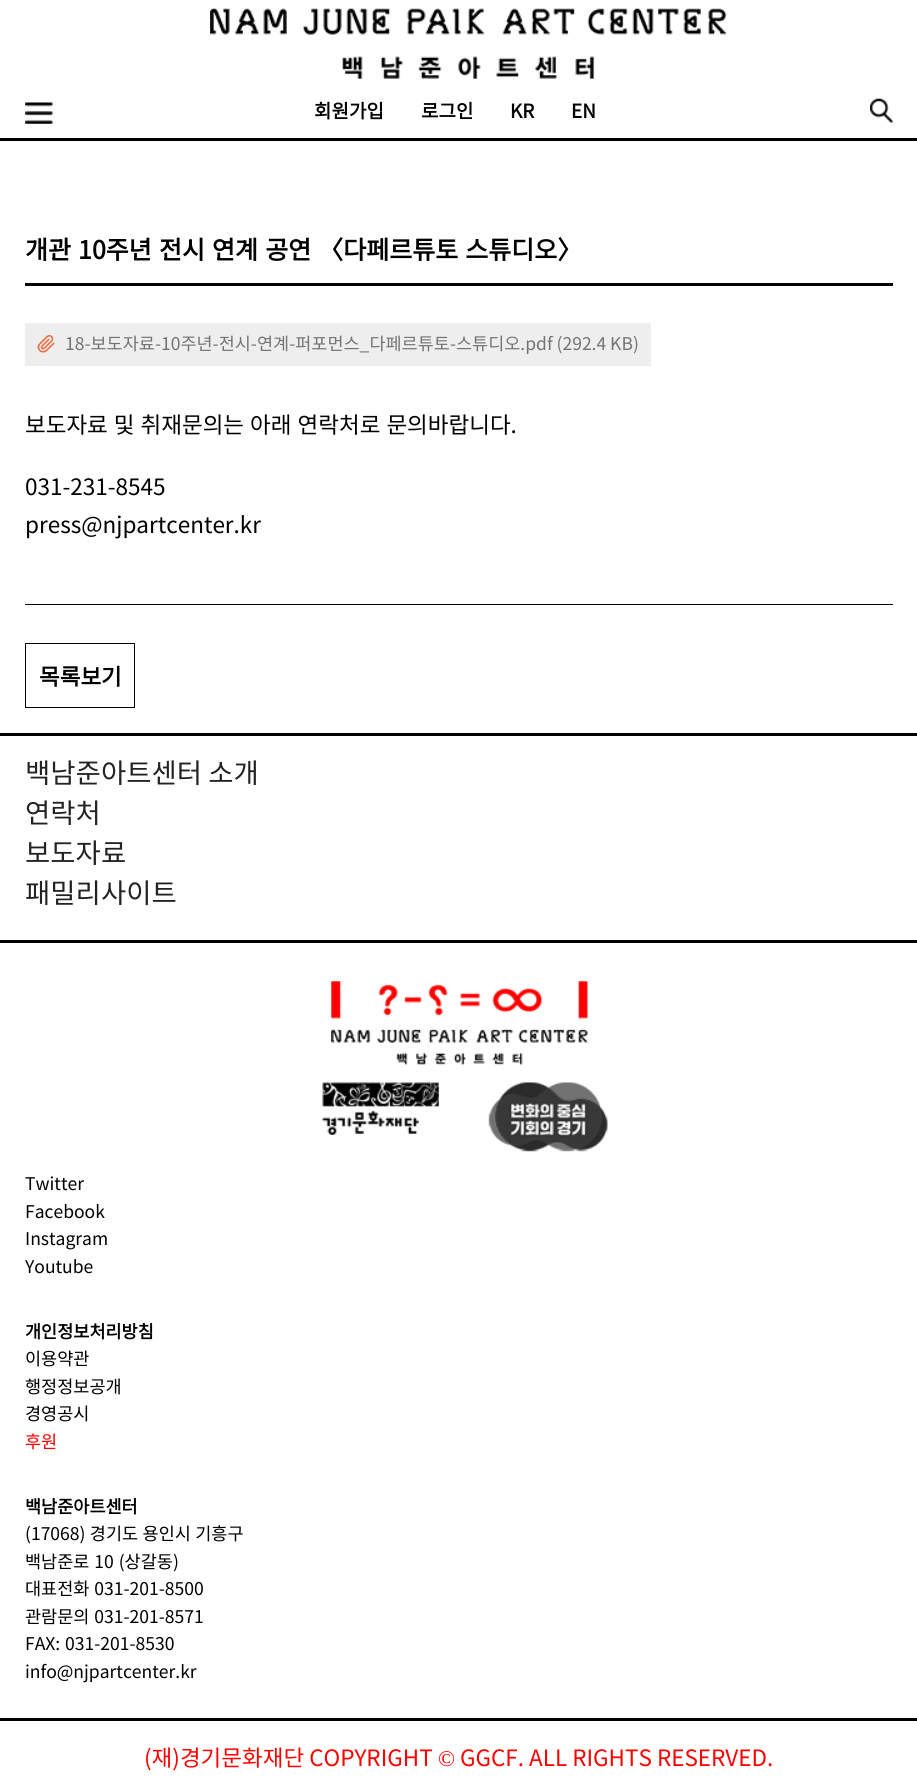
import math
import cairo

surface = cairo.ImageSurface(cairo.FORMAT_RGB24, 917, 1785)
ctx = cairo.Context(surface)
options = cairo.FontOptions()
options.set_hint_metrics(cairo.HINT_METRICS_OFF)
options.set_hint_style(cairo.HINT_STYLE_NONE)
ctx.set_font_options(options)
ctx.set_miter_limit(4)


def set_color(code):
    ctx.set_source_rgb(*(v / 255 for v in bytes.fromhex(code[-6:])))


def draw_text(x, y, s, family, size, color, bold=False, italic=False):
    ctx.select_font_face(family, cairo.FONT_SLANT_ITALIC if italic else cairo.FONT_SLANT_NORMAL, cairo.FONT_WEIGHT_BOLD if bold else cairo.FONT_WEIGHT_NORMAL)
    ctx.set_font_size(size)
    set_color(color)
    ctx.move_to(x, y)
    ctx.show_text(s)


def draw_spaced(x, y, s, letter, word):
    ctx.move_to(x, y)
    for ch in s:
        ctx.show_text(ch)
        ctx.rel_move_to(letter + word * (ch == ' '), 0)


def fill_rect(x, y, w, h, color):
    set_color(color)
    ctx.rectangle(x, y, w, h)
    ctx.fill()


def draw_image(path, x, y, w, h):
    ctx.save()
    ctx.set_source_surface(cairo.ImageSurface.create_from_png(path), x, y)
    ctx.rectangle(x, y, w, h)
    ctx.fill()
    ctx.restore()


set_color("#ffffff")
ctx.paint()
draw_image("assets/img1.png", 210, 8, 517, 71)
fill_rect(0, 138, 917, 3, "#000000")
draw_image("assets/img2.png", 25, 102, 28, 22)
draw_text(314, 118, "회원가입", "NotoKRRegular", 19, "#000000", bold=True)
draw_text(421, 118, "로그인", "NotoKRRegular", 19, "#000000", bold=True)
draw_text(510, 118, "KR", "NotoKRRegular", 19, "#000000", bold=True)
draw_text(571, 118, "EN", "NotoKRRegular", 19, "#000000", bold=True)
draw_image("assets/img3.png", 870, 98, 23, 25)
fill_rect(25, 283, 868, 3, "#050505")
ctx.select_font_face("Noto Sans KR", cairo.FONT_SLANT_NORMAL, cairo.FONT_WEIGHT_BOLD)
ctx.set_font_size(25)
set_color("#000000")
draw_spaced(25, 259, "개관 10주년 전시 연계 공연 〈다페르튜토 스튜디오〉", 0, 1.5)
fill_rect(25, 323, 626, 43, "#eeeeee")
draw_image("assets/img4.png", 37, 335, 18, 18)
draw_text(65, 350, "18-보도자료-10주년-전시-연계-퍼포먼스_다페르튜토-스튜디오.pdf (292.4 KB)", "NotoKRRegular", 17.5, "#737373")
fill_rect(25, 604, 868, 1, "#000000")
ctx.select_font_face("Noto Sans KR Thin")
ctx.set_font_size(22.5)
draw_spaced(25, 433, "보도자료 및 취재문의는 아래 연락처로 문의바랍니다.", 0, 1)
draw_text(25, 495, "031-231-8545", "Noto Sans KR Thin", 22.5, "#000000")
draw_text(25, 533, "press@njpartcenter.kr", "Noto Sans KR Thin", 22.5, "#000000")
ctx.rectangle(25.5, 643.5, 109, 64)
ctx.set_line_width(1)
ctx.stroke()
draw_text(39, 685, "목록보기", "Noto Sans KR", 22.5, "#000000", bold=True)
fill_rect(0, 733, 917, 3, "#000000")
fill_rect(0, 940, 917, 3, "#000000")
draw_text(25, 783, "백남준아트센터 소개", "NotoKRRegular", 27.5, "#222222")
draw_text(25, 823, "연락처", "NotoKRRegular", 27.5, "#222222")
draw_text(25, 863, "보도자료", "NotoKRRegular", 27.5, "#222222")
draw_text(25, 903, "패밀리사이트", "NotoKRRegular", 27.5, "#222222")
draw_image("assets/img5.png", 331, 981, 257, 84)
draw_image("assets/img6.png", 322, 1082, 117, 53)
draw_image("assets/img7.png", 488, 1082, 120, 70)
draw_text(25, 1190, "Twitter", "Noto Sans KR Thin", 17.5, "#000000")
draw_text(25, 1218, "Facebook", "Noto Sans KR Thin", 17.5, "#000000")
draw_text(25, 1245, "Instagram", "Noto Sans KR Thin", 17.5, "#000000")
draw_text(25, 1273, "Youtube", "Noto Sans KR Thin", 17.5, "#000000")
draw_text(25, 1338, "개인정보처리방침", "Noto Sans KR", 17.5, "#000000", bold=True)
draw_text(25, 1365, "이용약관", "Noto Sans KR Thin", 17.5, "#000000")
draw_text(25, 1393, "행정정보공개", "Noto Sans KR Thin", 17.5, "#000000")
draw_text(25, 1420, "경영공시", "Noto Sans KR Thin", 17.5, "#000000")
draw_text(25, 1448, "후원", "Noto Sans KR Thin", 17.5, "#ff0000")
draw_text(25, 1513, "백남준아트센터", "Noto Sans KR", 17.5, "#000000", bold=True)
ctx.select_font_face("Noto Sans KR Thin")
draw_spaced(25, 1540, "(17068) 경기도 용인시 기흥구", 0, 0.5)
draw_spaced(25, 1568, "백남준로 10 (상갈동)", 0, 1)
draw_spaced(25, 1595, "대표전화 031-201-8500", 0, 1)
draw_spaced(25, 1623, "관람문의 031-201-8571", 0, 1)
draw_spaced(25, 1650, "FAX: 031-201-8530", 0, 1)
draw_text(25, 1678, "info@njpartcenter.kr", "Noto Sans KR Thin", 17.5, "#000000")
fill_rect(0, 1718, 917, 3, "#000000")
draw_text(144, 1766, "(재)경기문화재단 COPYRIGHT", "NotoKRRegular", 22.5, "#ff0000")
draw_text(438, 1766, "©", "Liberation Serif", 22.5, "#ff0000")
draw_text(460, 1766, "GGCF. ALL RIGHTS RESERVED.", "NotoKRRegular", 22.5, "#ff0000")
surface.write_to_png("output.png")
